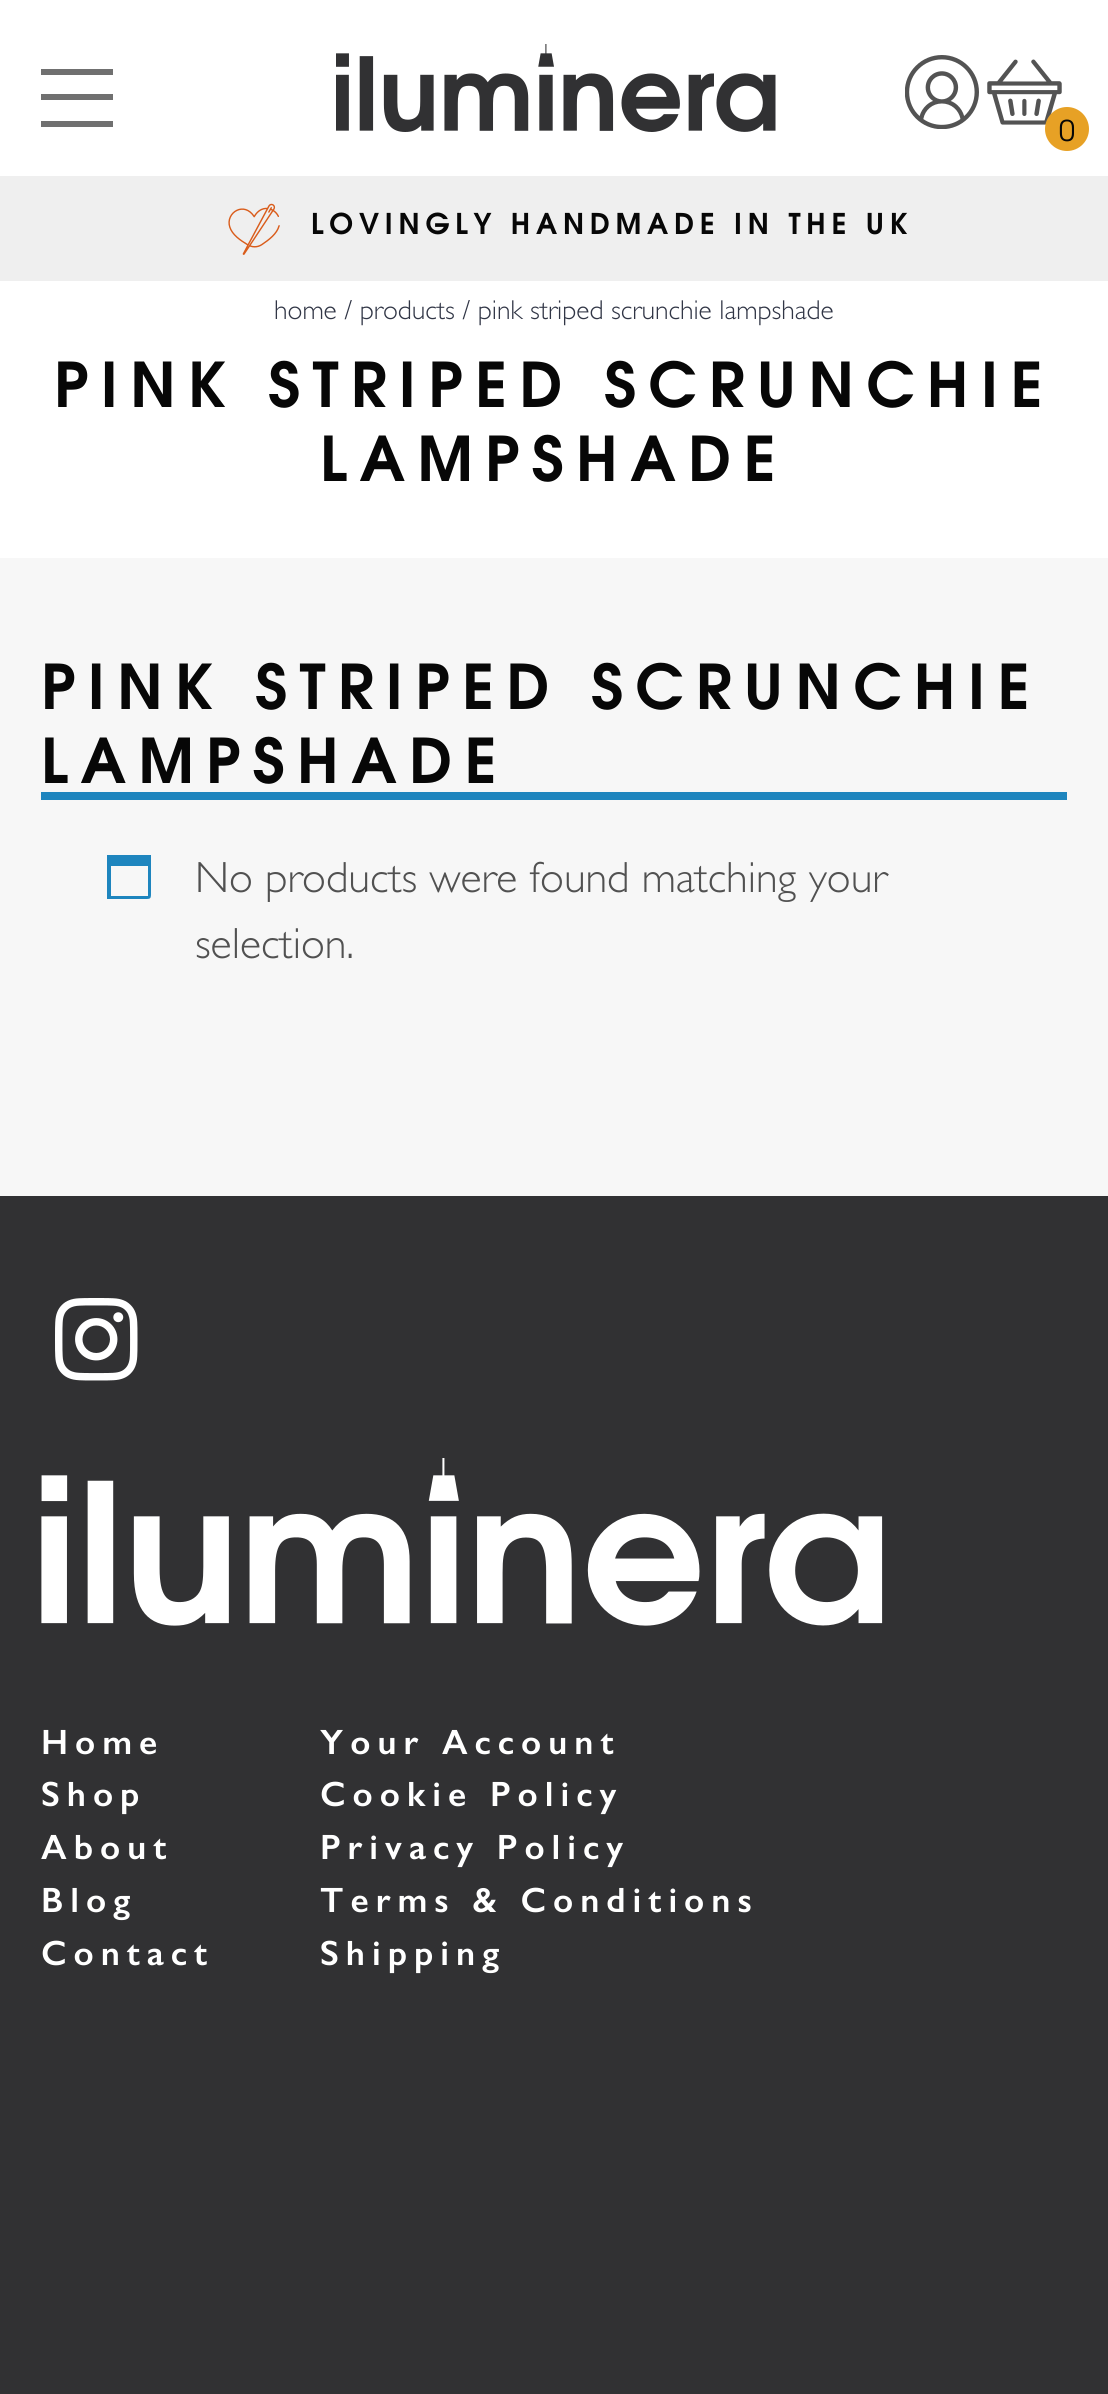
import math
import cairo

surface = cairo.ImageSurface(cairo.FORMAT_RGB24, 1108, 2394)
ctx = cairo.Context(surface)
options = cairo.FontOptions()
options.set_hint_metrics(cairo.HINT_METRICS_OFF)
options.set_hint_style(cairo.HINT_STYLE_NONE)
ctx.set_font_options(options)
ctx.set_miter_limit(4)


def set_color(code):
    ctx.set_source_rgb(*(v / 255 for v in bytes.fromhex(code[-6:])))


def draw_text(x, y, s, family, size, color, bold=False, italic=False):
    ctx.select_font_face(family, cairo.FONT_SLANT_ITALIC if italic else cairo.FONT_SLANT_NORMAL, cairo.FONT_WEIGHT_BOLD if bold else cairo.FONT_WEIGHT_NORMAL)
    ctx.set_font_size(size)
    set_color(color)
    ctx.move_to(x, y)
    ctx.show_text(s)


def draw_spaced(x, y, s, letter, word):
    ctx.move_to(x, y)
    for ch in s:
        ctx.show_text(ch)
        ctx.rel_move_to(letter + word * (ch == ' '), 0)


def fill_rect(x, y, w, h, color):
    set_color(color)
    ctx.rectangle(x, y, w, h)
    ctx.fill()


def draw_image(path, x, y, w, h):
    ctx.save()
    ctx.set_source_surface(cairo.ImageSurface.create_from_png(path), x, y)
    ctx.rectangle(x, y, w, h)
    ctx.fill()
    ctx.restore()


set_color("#ffffff")
ctx.paint()
fill_rect(41, 69, 72, 6, "#707070")
fill_rect(41, 94, 72, 6, "#707070")
fill_rect(41, 121, 72, 6, "#707070")
draw_image("assets/img1.png", 336, 44, 440, 88)
draw_image("assets/img2.png", 905, 55, 74, 74)
draw_image("assets/img3.png", 987, 59, 75, 66)
set_color("#e7a125")
ctx.arc(1067, 129, 22, 0, 2 * math.pi)
ctx.fill()
draw_text(1059, 141, "0", "TeX Gyre Adventor", 28.6, "#070707")
fill_rect(0, 176, 1108, 105, "#efefef")
draw_image("assets/img4.png", 228, 203, 52, 52)
ctx.select_font_face("TeX Gyre Adventor", cairo.FONT_SLANT_NORMAL, cairo.FONT_WEIGHT_BOLD)
set_color("#070707")
draw_spaced(311, 234, "LOVINGLY HANDMADE IN THE UK", 5.75, 0)
draw_text(274, 319, "home / products / pink striped scrunchie lampshade", "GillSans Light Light", 27.5, "#313646")
ctx.select_font_face("TeX Gyre Adventor", cairo.FONT_SLANT_NORMAL, cairo.FONT_WEIGHT_BOLD)
ctx.set_font_size(61.6)
set_color("#070707")
draw_spaced(54, 407, "PINK STRIPED SCRUNCHIE", 12.3, 0)
draw_spaced(320, 481, "LAMPSHADE", 12.3, 0)
fill_rect(0, 558, 1108, 638, "#f7f7f7")
set_color("#070707")
draw_spaced(41, 709, "PINK STRIPED SCRUNCHIE", 12.3, 0)
draw_spaced(41, 783, "LAMPSHADE", 12.3, 0)
fill_rect(41, 792, 1026, 8, "#1e85be")
ctx.new_path()
ctx.move_to(148, 866)
ctx.line_to(111, 866)
ctx.line_to(111, 896)
ctx.line_to(148, 896)
ctx.close_path()
ctx.move_to(151, 855)
ctx.line_to(151, 889)
ctx.curve_to(151, 900, 152, 899, 141, 899)
ctx.line_to(107, 899)
ctx.line_to(107, 855)
ctx.close_path()
ctx.fill()
draw_text(195, 892, "No products were found matching your", "GillSans Light Light", 44, "#515151")
draw_text(195, 958, "selection.", "GillSans Light Light", 44, "#515151")
fill_rect(0, 1196, 1108, 1198, "#313133")
draw_image("assets/img5.png", 55, 1298, 83, 83)
draw_image("assets/img6.png", 41, 1458, 842, 168)
ctx.select_font_face("Gill Sans SemiBold")
ctx.set_font_size(35.25)
set_color("#ffffff")
draw_spaced(41, 1754, "Home", 7, 0)
draw_spaced(41, 1806, "Shop", 7, 0)
draw_spaced(41, 1859, "About", 7, 0)
draw_spaced(41, 1912, "Blog", 7, 0)
draw_spaced(41, 1965, "Contact", 7, 0)
draw_spaced(320, 1754, "Your Account", 7, 0)
draw_spaced(320, 1806, "Cookie Policy", 7, 0)
draw_spaced(320, 1859, "Privacy Policy", 7, 0)
draw_spaced(320, 1912, "Terms & Conditions", 7, 0)
draw_spaced(320, 1965, "Shipping", 7, 0)
surface.write_to_png("output.png")
